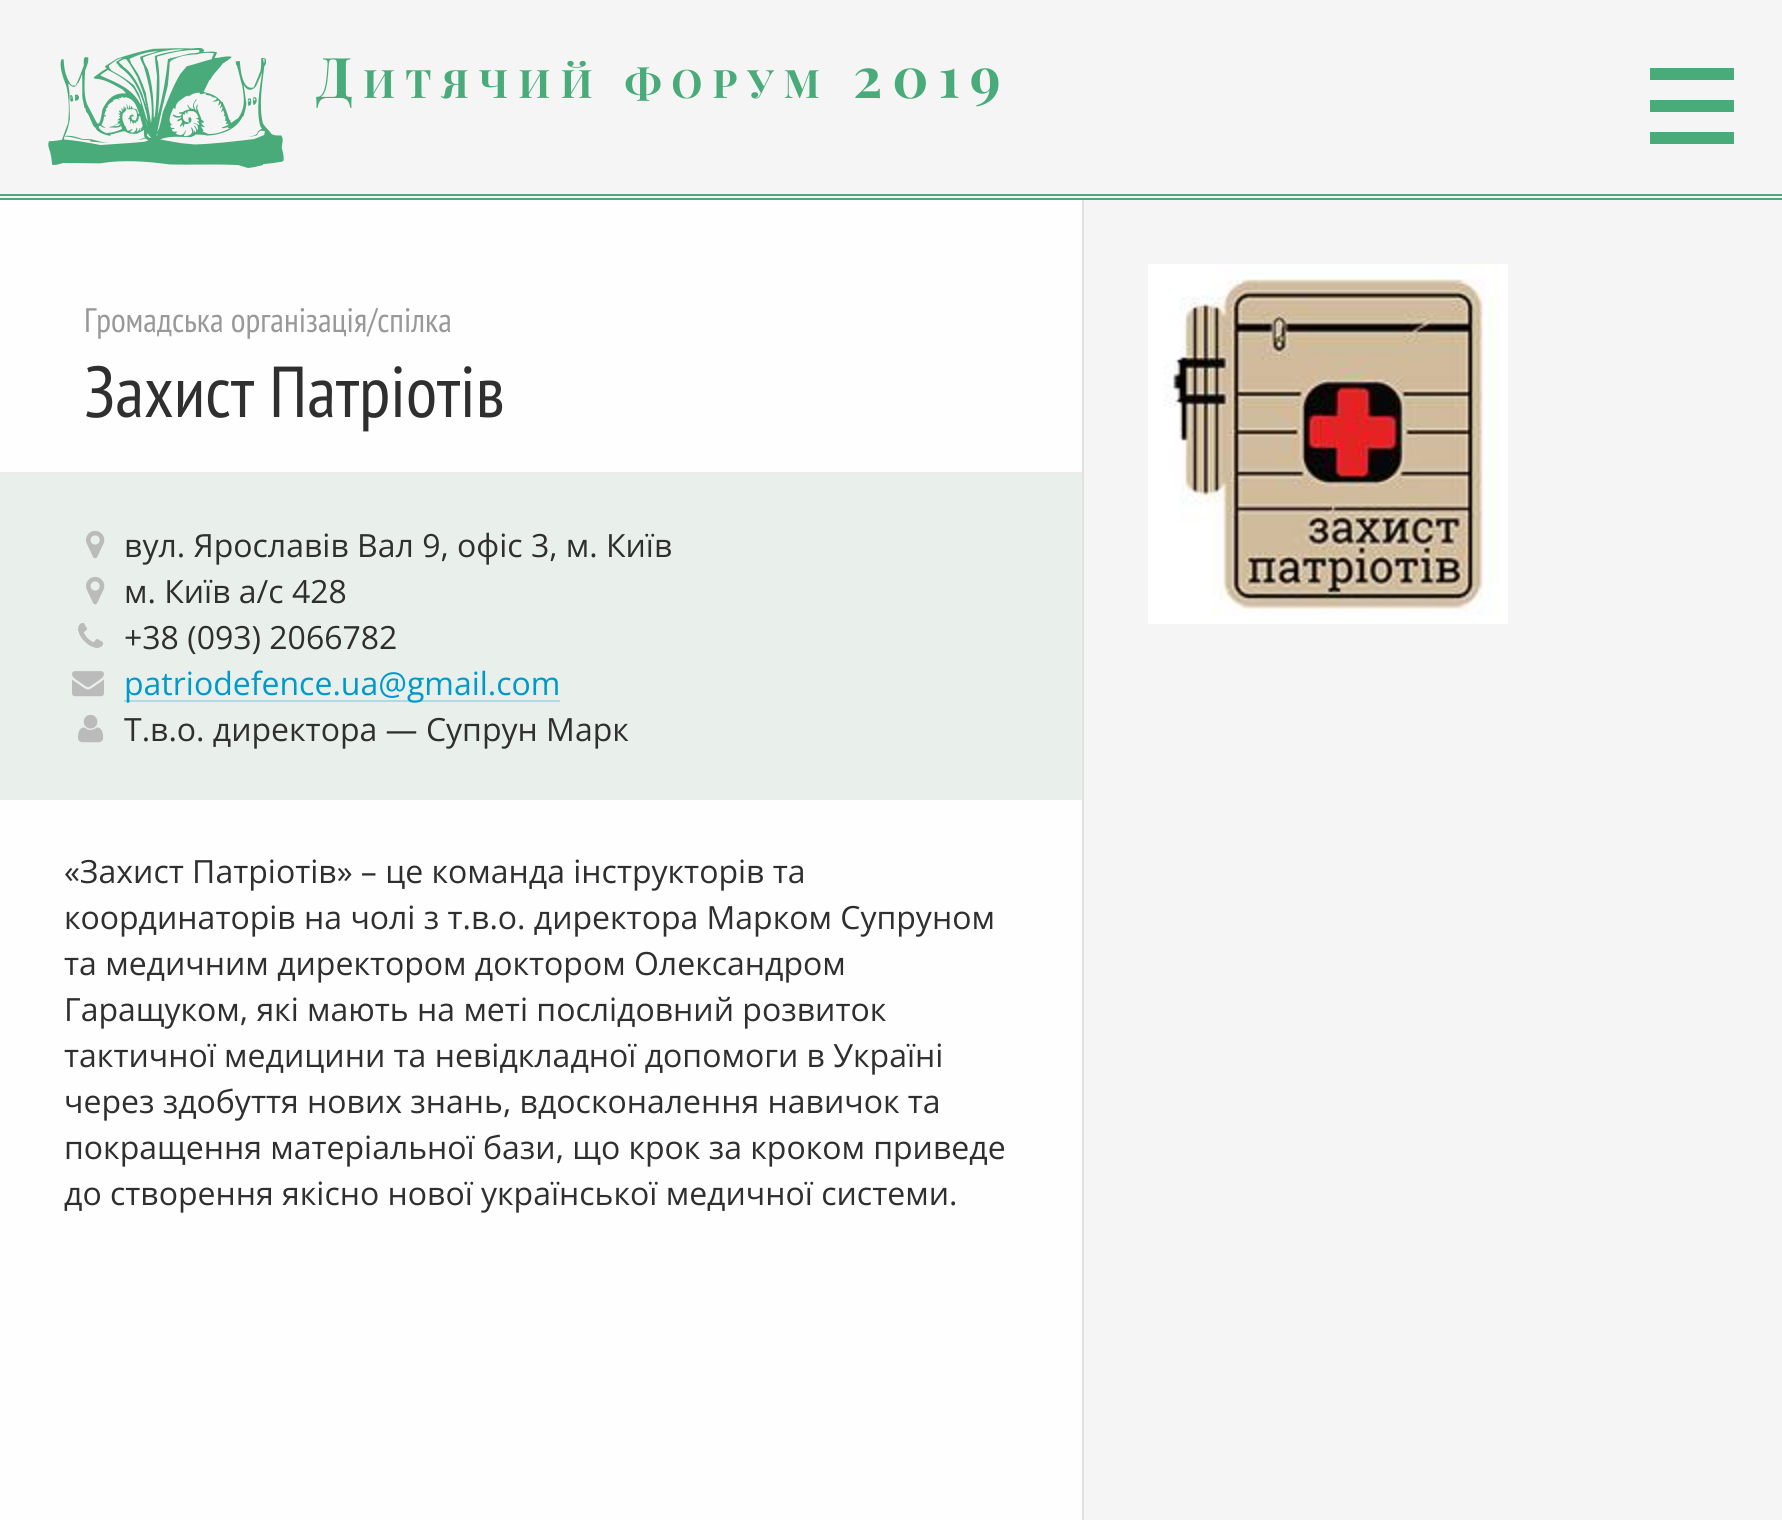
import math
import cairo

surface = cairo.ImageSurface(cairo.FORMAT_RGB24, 1782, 1520)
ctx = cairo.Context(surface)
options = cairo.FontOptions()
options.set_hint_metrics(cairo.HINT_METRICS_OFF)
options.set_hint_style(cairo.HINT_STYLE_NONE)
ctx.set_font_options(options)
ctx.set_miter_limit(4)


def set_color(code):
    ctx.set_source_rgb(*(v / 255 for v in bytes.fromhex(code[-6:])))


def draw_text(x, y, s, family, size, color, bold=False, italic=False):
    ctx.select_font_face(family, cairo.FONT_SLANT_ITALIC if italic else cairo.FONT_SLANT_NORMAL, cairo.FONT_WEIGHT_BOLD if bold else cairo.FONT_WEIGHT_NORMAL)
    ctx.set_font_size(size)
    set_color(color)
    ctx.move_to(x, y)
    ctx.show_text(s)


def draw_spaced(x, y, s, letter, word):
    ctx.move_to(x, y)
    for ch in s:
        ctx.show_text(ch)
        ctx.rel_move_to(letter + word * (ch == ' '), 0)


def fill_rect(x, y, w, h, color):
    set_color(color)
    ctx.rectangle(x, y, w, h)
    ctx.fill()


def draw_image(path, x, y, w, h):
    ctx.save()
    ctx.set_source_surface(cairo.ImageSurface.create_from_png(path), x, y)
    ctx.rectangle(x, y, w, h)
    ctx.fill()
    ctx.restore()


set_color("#f5f5f5")
ctx.paint()
fill_rect(0, 194, 1782, 2, "#48ab79")
fill_rect(0, 198, 1782, 2, "#48ab79")
draw_image("assets/img1.png", 48, 48, 236, 120)
ctx.select_font_face("Playfair Display", cairo.FONT_SLANT_NORMAL, cairo.FONT_WEIGHT_BOLD)
ctx.set_font_size(56)
draw_spaced(316, 98, "Д", 10, 0)
ctx.set_font_size(39.25)
draw_spaced(363, 98, "ИТЯЧИЙ", 10, 0)
draw_spaced(625, 98, "ФОРУМ", 10, 0)
ctx.set_font_size(56)
draw_spaced(853, 98, "2019", 10, 0)
fill_rect(1650, 100, 84, 12, "#48ab79")
fill_rect(1650, 68, 84, 12, "#48ab79")
fill_rect(1650, 132, 84, 12, "#48ab79")
fill_rect(0, 200, 1082, 1320, "#fefefe")
fill_rect(0, 472, 1082, 2, "#ececec")
draw_text(84, 332, "Громадська організація/спілка", "PT Sans Narrow", 34, "#999999")
draw_text(84, 417, "Захист Патріотів", "PT Sans Narrow", 72, "#2f2f2f")
fill_rect(1082, 200, 2, 1320, "#e1e1e1")
draw_image("assets/img2.png", 1148, 264, 360, 360)
fill_rect(0, 474, 1082, 326, "#e9f0ec")
draw_image("assets/img3.png", 86, 530, 19, 29)
draw_text(124, 557, "вул. Ярославів Вал 9, офіс 3, м. Київ", "Open Sans", 32, "#2f2f2f")
draw_image("assets/img3.png", 86, 576, 19, 29)
draw_text(124, 603, "м. Київ а/с 428", "Open Sans", 32, "#2f2f2f")
draw_image("assets/img4.png", 78, 622, 26, 26)
draw_text(124, 649, "+38 (093) 2066782", "Open Sans", 32, "#2f2f2f")
draw_image("assets/img5.png", 72, 671, 32, 26)
draw_text(124, 695, "patriodefence.ua@gmail.com", "Open Sans", 32, "#0099cc")
ctx.set_source_rgba(0, 0.6, 0.8, 0.25)
ctx.rectangle(124, 700, 436, 2)
ctx.fill()
draw_image("assets/img6.png", 78, 714, 26, 29)
draw_text(124, 741, "Т.в.о. директора — Супрун Марк", "Open Sans", 32, "#2f2f2f")
draw_text(64, 883, "«Захист Патріотів» – це команда інструкторів та", "Open Sans", 32, "#2f2f2f")
draw_text(64, 929, "координаторів на чолі з т.в.о. директора Марком Супруном", "Open Sans", 32, "#2f2f2f")
draw_text(64, 975, "та медичним директором доктором Олександром", "Open Sans", 32, "#2f2f2f")
draw_text(64, 1021, "Гаращуком, які мають на меті послідовний розвиток", "Open Sans", 32, "#2f2f2f")
draw_text(64, 1067, "тактичної медицини та невідкладної допомоги в Україні", "Open Sans", 32, "#2f2f2f")
draw_text(64, 1113, "через здобуття нових знань, вдосконалення навичок та", "Open Sans", 32, "#2f2f2f")
draw_text(64, 1159, "покращення матеріальної бази, що крок за кроком приведе", "Open Sans", 32, "#2f2f2f")
draw_text(64, 1205, "до створення якісно нової української медичної системи.", "Open Sans", 32, "#2f2f2f")
surface.write_to_png("output.png")
